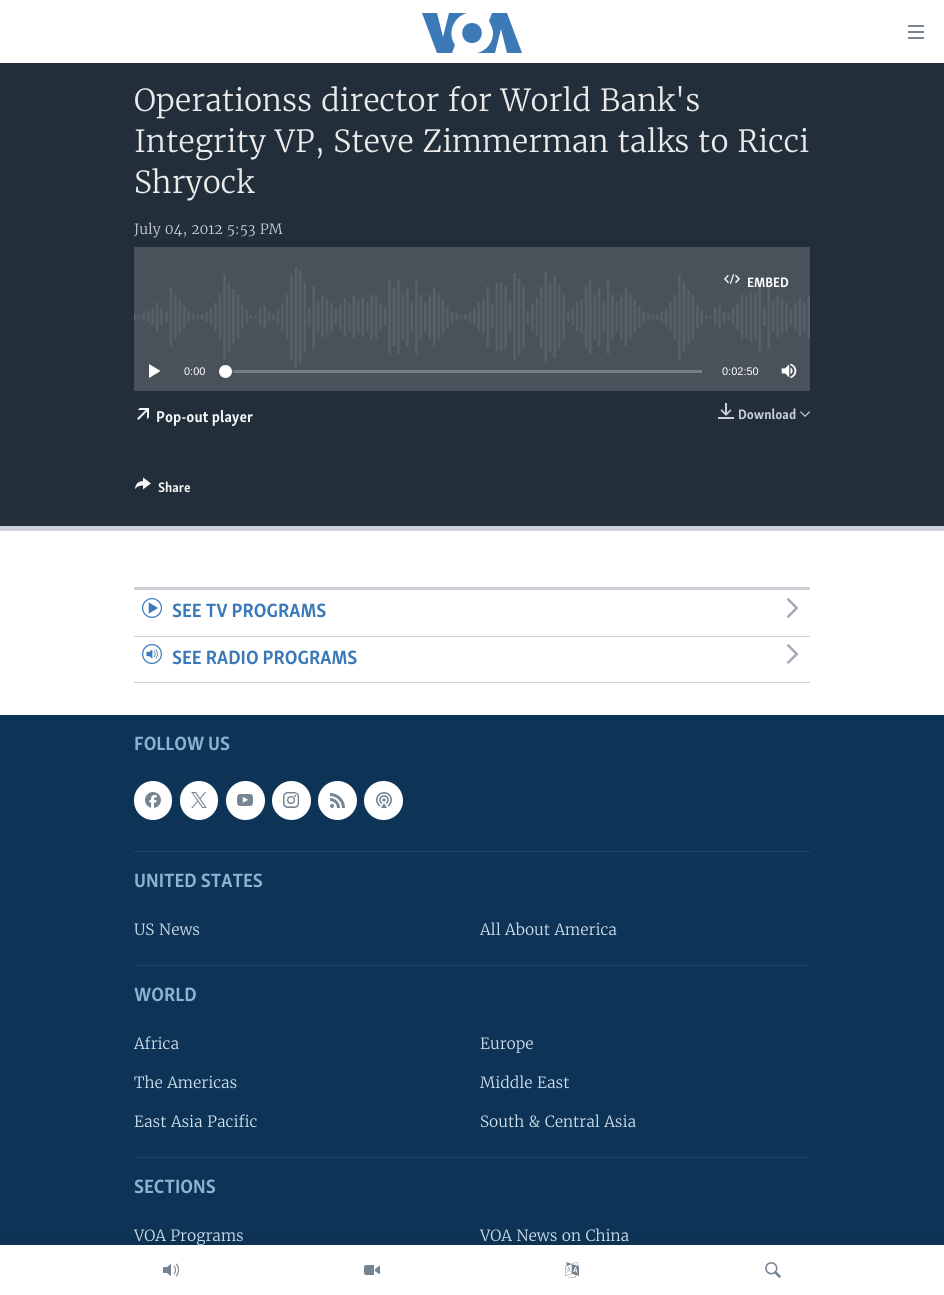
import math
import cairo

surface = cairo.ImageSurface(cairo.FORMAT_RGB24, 944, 1295)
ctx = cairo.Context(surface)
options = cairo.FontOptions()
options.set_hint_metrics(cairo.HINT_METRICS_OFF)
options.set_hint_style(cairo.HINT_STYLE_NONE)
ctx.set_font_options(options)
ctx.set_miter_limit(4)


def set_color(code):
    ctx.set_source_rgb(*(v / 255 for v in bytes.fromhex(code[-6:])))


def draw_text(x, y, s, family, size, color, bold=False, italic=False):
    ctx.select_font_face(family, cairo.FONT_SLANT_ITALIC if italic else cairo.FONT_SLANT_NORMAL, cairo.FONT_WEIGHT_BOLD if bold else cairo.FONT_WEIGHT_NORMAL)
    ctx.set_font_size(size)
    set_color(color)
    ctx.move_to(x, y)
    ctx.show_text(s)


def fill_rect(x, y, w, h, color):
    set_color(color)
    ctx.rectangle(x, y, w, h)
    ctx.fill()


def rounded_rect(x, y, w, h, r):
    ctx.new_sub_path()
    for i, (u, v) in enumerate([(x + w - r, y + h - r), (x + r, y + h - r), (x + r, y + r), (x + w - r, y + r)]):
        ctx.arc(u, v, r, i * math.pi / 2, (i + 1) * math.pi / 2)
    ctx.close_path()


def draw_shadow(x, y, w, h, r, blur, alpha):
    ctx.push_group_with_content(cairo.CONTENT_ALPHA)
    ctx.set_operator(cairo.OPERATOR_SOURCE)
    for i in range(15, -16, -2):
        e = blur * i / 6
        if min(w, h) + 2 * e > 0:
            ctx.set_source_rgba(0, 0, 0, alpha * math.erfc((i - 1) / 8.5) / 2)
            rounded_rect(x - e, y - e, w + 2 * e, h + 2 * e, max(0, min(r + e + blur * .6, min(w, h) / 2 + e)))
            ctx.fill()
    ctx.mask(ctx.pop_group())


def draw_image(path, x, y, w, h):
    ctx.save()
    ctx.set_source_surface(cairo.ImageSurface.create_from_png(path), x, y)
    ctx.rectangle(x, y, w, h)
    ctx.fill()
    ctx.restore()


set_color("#ffffff")
ctx.paint()
set_color("#3b79b7")
ctx.new_path()
ctx.move_to(455, 45)
ctx.line_to(452, 53)
ctx.line_to(437, 53)
ctx.line_to(422, 13)
ctx.line_to(437, 13)
ctx.line_to(443, 37)
ctx.line_to(449, 13)
ctx.line_to(467, 13)
ctx.curve_to(453, 17, 447, 33, 455, 45)
ctx.close_path()
ctx.move_to(472, 23)
ctx.curve_to(459, 23, 459, 43, 472, 43)
ctx.curve_to(485, 43, 485, 23, 472, 23)
ctx.close_path()
ctx.move_to(493, 33)
ctx.curve_to(493, 43, 486, 51, 477, 53)
ctx.line_to(495, 53)
ctx.line_to(501, 29)
ctx.line_to(507, 53)
ctx.line_to(522, 53)
ctx.line_to(507, 13)
ctx.line_to(492, 13)
ctx.line_to(489, 21)
ctx.curve_to(491, 25, 493, 29, 493, 33)
ctx.close_path()
ctx.fill()
draw_image("assets/img1.png", 908, 25, 16, 14)
fill_rect(0, 715, 944, 530, "#0d3456")
set_color("#000000")
draw_shadow(0, 1245, 944, 50, 0, 10, 0.1)
draw_text(134, 1241, "VOA Programs", "Merriweather Light", 15.4, "#d1e1ee")
fill_rect(0, 1245, 944, 50, "#ffffff")
draw_image("assets/img2.png", 163, 1263, 16, 14)
draw_image("assets/img3.png", 364, 1265, 16, 10)
draw_image("assets/img4.png", 565, 1262, 14, 16)
draw_image("assets/img5.png", 765, 1262, 16, 16)
fill_rect(0, 63, 944, 463, "#222f3a")
fill_rect(0, 526, 944, 5, "#cbd1d6")
draw_text(134, 111, "Operationss director for World Bank's", "Merriweather Light", 30.4, "#ebebeb")
draw_text(134, 152, "Integrity VP, Steve Zimmerman talks to Ricci", "Merriweather Light", 30.4, "#ebebeb")
draw_text(134, 193, "Shryock", "Merriweather Light", 30.4, "#ebebeb")
draw_text(134, 234, "July 04, 2012 5:53 PM", "Merriweather Light", 14, "#cbd1d6")
fill_rect(134, 247, 676, 144, "#49525a")
draw_image("assets/img6.png", 134, 267, 676, 100)
draw_image("assets/img7.png", 724, 274, 16, 10)
draw_text(747, 287, "EMBED", "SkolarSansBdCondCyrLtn", 14, "#ffffff", bold=True)
ctx.new_path()
ctx.move_to(149, 378)
ctx.line_to(160.5, 371)
ctx.line_to(149, 364)
ctx.close_path()
ctx.fill()
draw_text(184, 375, "0:00", "Liberation Sans", 11, "#ffffff")
fill_rect(225, 370, 477, 3, "#777d83")
set_color("#414144")
draw_shadow(219, 365, 13, 13, 6.5, 1.5, 1)
set_color("#ffffff")
ctx.arc(225.5, 371.5, 6.5, 0, 2 * math.pi)
ctx.fill()
draw_text(722, 375, "0:02:50", "Liberation Sans", 11, "#ffffff")
draw_image("assets/img8.png", 781, 363, 16, 16)
draw_image("assets/img9.png", 137, 408, 12, 12)
draw_text(156, 422, "Pop-out player", "SkolarSansBdCondCyrLtn", 16, "#f6f7f8", bold=True)
draw_image("assets/img10.png", 718, 403, 16, 16)
draw_text(738, 419, "Download", "SkolarSansBdCondCyrLtn", 14, "#cbd1d6", bold=True)
draw_image("assets/img11.png", 800, 411, 10, 6)
draw_image("assets/img12.png", 135, 477, 16, 13)
draw_text(158, 492, "Share", "SkolarSansBdCondCyrLtn", 14, "#f6f7f8", bold=True)
fill_rect(134, 587, 676, 3, "#cbd1d6")
fill_rect(134, 636, 676, 1, "#cbd1d6")
draw_image("assets/img13.png", 142, 598, 20, 20)
draw_text(172, 617, "SEE TV PROGRAMS", "SkolarSansBdCondCyrLtn", 19.75, "#3a79b7", bold=True)
set_color("#a1aab4")
ctx.new_path()
ctx.move_to(788.5, 618)
ctx.line_to(798.5, 608)
ctx.line_to(788.5, 598)
ctx.line_to(786.5, 599.5)
ctx.line_to(795, 608)
ctx.line_to(786.5, 616.5)
ctx.close_path()
ctx.fill()
fill_rect(134, 682, 676, 1, "#cbd1d6")
draw_image("assets/img14.png", 142, 644, 20, 20)
draw_text(172, 664, "SEE RADIO PROGRAMS", "SkolarSansBdCondCyrLtn", 19.75, "#3a79b7", bold=True)
set_color("#a1aab4")
ctx.new_path()
ctx.move_to(788.5, 664)
ctx.line_to(798.5, 654)
ctx.line_to(788.5, 644)
ctx.line_to(786.5, 645.5)
ctx.line_to(795, 654)
ctx.line_to(786.5, 662.5)
ctx.close_path()
ctx.fill()
draw_text(134, 750, "FOLLOW US", "SkolarSansBdCondCyrLtn", 19.75, "#8db3d4", bold=True)
set_color("#ffffff")
rounded_rect(134, 781, 38, 39, 19)
ctx.fill()
draw_image("assets/img15.png", 145, 792, 16, 16)
rounded_rect(180, 781, 38, 39, 19)
ctx.fill()
draw_image("assets/img16.png", 191, 792, 16, 16)
ctx.arc(245.5, 800.5, 19.5, 0, 2 * math.pi)
ctx.fill()
draw_image("assets/img17.png", 237, 794, 16, 12)
ctx.arc(291.5, 800.5, 19.5, 0, 2 * math.pi)
ctx.fill()
draw_image("assets/img18.png", 283, 792, 17, 16)
ctx.arc(337.5, 800.5, 19.5, 0, 2 * math.pi)
ctx.fill()
draw_image("assets/img19.png", 330, 793, 15, 15)
ctx.arc(383.5, 800.5, 19.5, 0, 2 * math.pi)
ctx.fill()
draw_image("assets/img20.png", 376, 792, 16, 16)
fill_rect(134, 851, 676, 1, "#134976")
draw_text(134, 887, "UNITED STATES", "SkolarSansBdCondCyrLtn", 19.75, "#8db3d4", bold=True)
draw_text(134, 935, "US News", "Merriweather Light", 15.4, "#d1e1ee")
draw_text(480, 935, "All About America", "Merriweather Light", 15.4, "#d1e1ee")
fill_rect(134, 965, 676, 1, "#134976")
draw_text(134, 1001, "WORLD", "SkolarSansBdCondCyrLtn", 19.75, "#8db3d4", bold=True)
draw_text(134, 1049, "Africa", "Merriweather Light", 15.4, "#d1e1ee")
draw_text(480, 1049, "Europe", "Merriweather Light", 15.4, "#d1e1ee")
draw_text(134, 1088, "The Americas", "Merriweather Light", 15.4, "#d1e1ee")
draw_text(480, 1088, "Middle East", "Merriweather Light", 15.4, "#d1e1ee")
draw_text(134, 1127, "East Asia Pacific", "Merriweather Light", 15.4, "#d1e1ee")
draw_text(480, 1127, "South & Central Asia", "Merriweather Light", 15.4, "#d1e1ee")
fill_rect(134, 1157, 676, 1, "#134976")
draw_text(134, 1193, "SECTIONS", "SkolarSansBdCondCyrLtn", 19.75, "#8db3d4", bold=True)
draw_text(480, 1241, "VOA News on China", "Merriweather Light", 15.4, "#d1e1ee")
surface.write_to_png("output.png")
